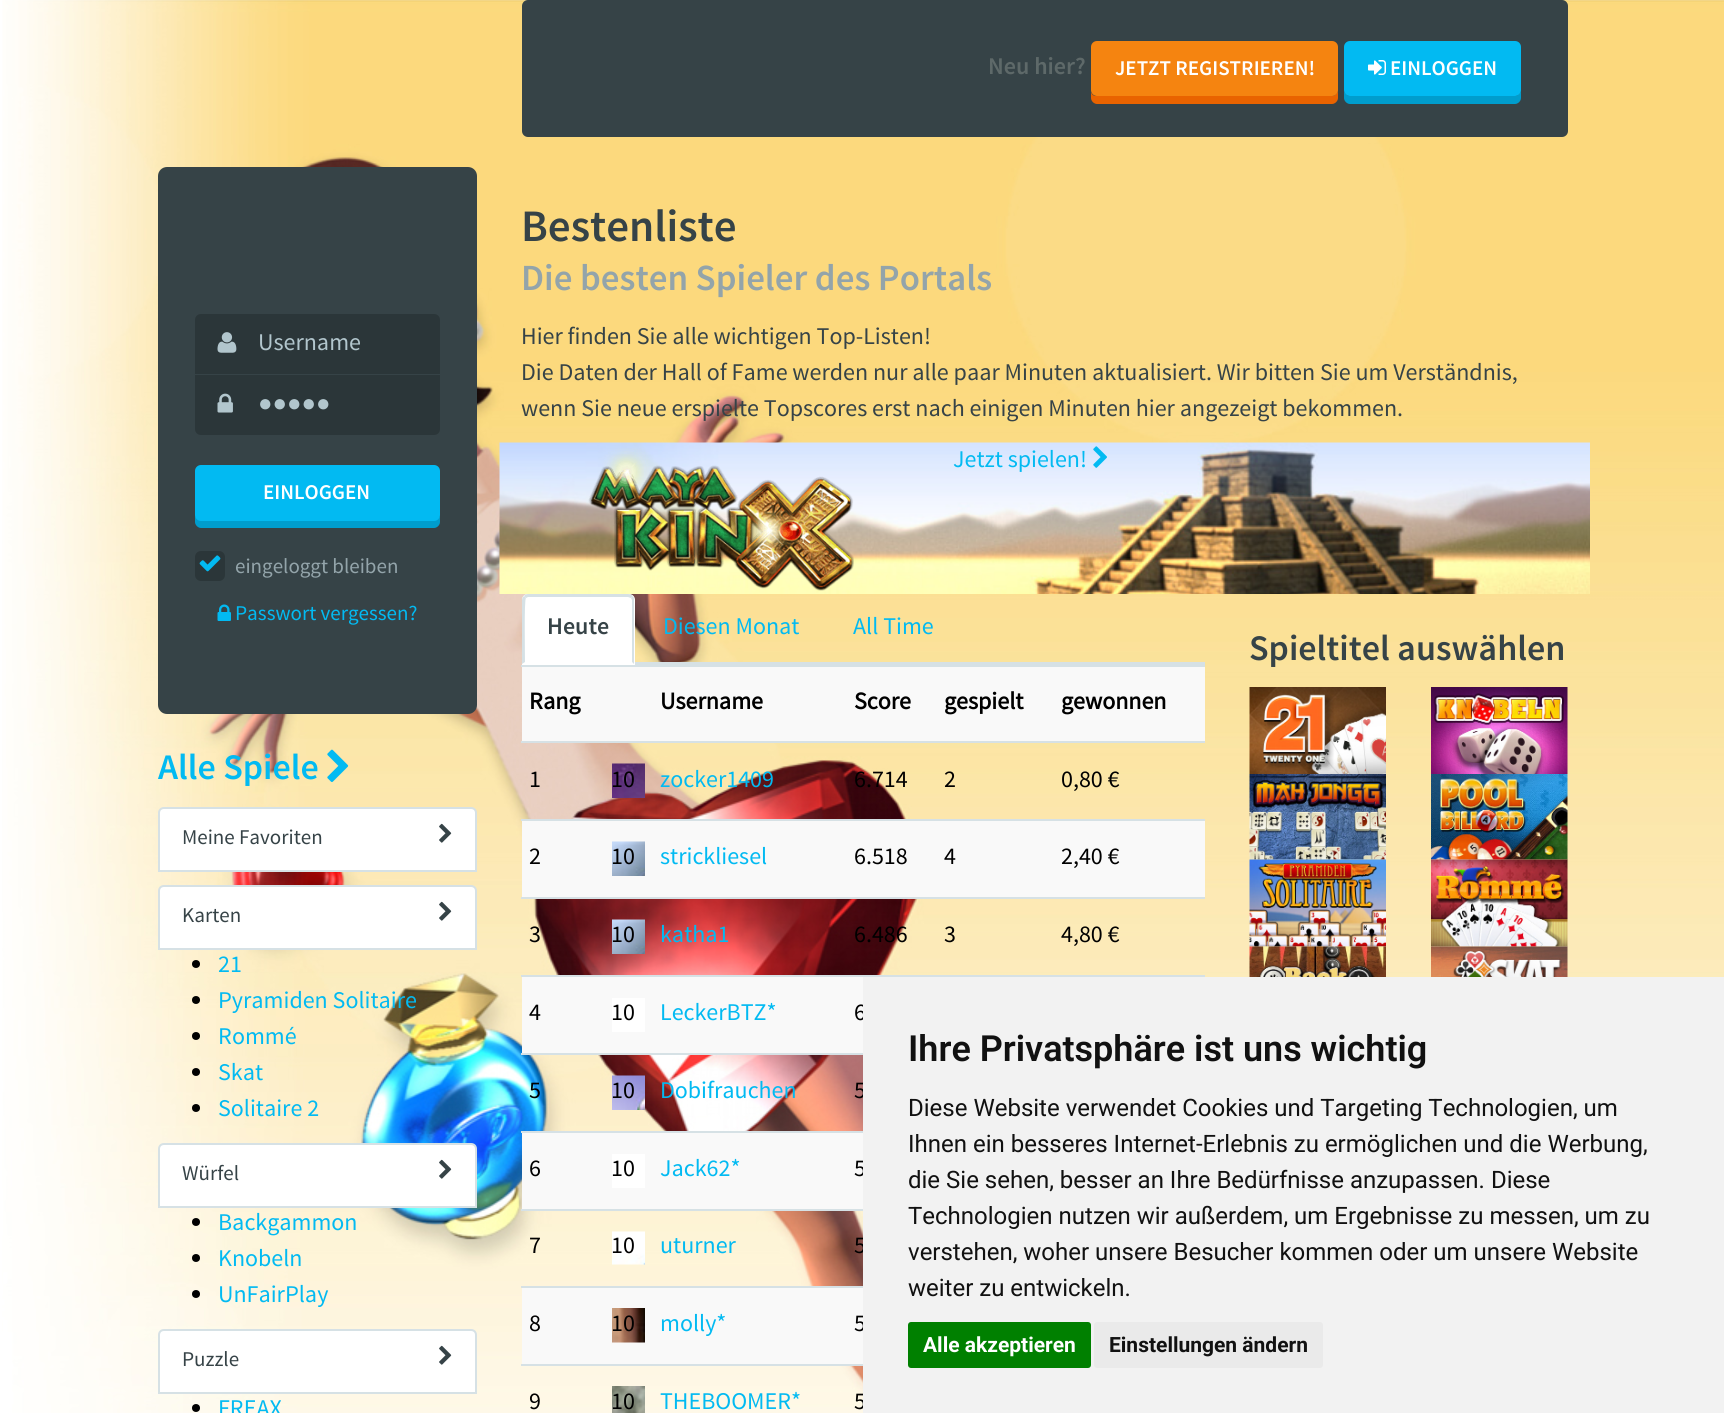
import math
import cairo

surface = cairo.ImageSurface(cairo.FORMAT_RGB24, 1724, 1413)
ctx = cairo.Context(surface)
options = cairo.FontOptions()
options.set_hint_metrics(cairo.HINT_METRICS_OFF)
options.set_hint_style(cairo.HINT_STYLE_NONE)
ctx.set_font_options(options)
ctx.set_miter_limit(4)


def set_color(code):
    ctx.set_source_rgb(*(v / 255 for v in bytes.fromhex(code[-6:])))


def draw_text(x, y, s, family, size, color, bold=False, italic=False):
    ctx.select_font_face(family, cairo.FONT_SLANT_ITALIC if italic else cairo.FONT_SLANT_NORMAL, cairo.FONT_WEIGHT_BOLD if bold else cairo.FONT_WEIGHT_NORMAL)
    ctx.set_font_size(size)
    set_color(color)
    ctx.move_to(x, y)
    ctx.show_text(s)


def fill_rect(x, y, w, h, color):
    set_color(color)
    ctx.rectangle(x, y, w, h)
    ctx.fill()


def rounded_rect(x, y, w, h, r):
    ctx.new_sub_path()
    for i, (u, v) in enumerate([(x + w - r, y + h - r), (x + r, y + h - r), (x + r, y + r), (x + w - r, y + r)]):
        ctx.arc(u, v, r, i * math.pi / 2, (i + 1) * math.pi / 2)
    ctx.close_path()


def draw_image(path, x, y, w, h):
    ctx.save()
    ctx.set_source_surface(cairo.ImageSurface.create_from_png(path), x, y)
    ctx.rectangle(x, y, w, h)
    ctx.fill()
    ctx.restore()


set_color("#ffffff")
ctx.paint()
draw_image("assets/img1.png", 2, 0, 1722, 1413)
set_color("#364347")
rounded_rect(523, 1, 1044, 135, 5)
ctx.fill_preserve()
ctx.stroke()
draw_text(988, 74, "Neu hier?", "Source Sans Pro SemiBold", 24, "#5e6969")
set_color("#e96300")
ctx.new_path()
ctx.move_to(1091, 92)
ctx.line_to(1091, 98)
ctx.curve_to(1091, 101, 1094, 104, 1097, 104)
ctx.line_to(1332, 104)
ctx.curve_to(1335, 104, 1338, 101, 1338, 98)
ctx.line_to(1338, 90)
ctx.curve_to(1338, 93, 1335, 96, 1332, 96)
ctx.line_to(1096, 96)
ctx.curve_to(1094, 96, 1092, 95, 1091, 92)
ctx.close_path()
ctx.fill()
set_color("#f58410")
rounded_rect(1091, 41, 247, 55, 6)
ctx.fill()
draw_text(1115, 75, "JETZT REGISTRIEREN!", "Source Sans Pro SemiBold", 21, "#ffffff")
set_color("#009dcd")
ctx.new_path()
ctx.move_to(1344, 90)
ctx.line_to(1344, 98)
ctx.curve_to(1344, 101, 1347, 104, 1350, 104)
ctx.line_to(1515, 104)
ctx.curve_to(1518, 104, 1521, 101, 1521, 98)
ctx.line_to(1521, 90)
ctx.curve_to(1521, 93, 1518, 96, 1515, 96)
ctx.line_to(1350, 96)
ctx.curve_to(1347, 96, 1344, 93, 1344, 90)
ctx.close_path()
ctx.fill()
set_color("#02baf2")
rounded_rect(1344, 41, 177, 55, 6)
ctx.fill()
draw_image("assets/img2.png", 1368, 60, 18, 15)
draw_text(1390, 75, "EINLOGGEN", "Source Sans Pro SemiBold", 21, "#ffffff")
set_color("#364347")
rounded_rect(158, 167, 319, 547, 9)
ctx.fill()
set_color("#2b3639")
ctx.new_path()
ctx.move_to(201, 314)
ctx.line_to(434, 314)
ctx.curve_to(437.5, 314, 440, 316.5, 440, 320)
ctx.line_to(440, 374)
ctx.line_to(195, 374)
ctx.line_to(195, 320)
ctx.curve_to(195, 316.5, 197.5, 314, 201, 314)
ctx.close_path()
ctx.fill()
draw_image("assets/img3.png", 217, 332, 20, 21)
draw_text(258, 350, "Username", "Source Sans Pro", 24, "#b2c6cd")
set_color("#2b3639")
ctx.new_path()
ctx.move_to(195, 375)
ctx.line_to(440, 375)
ctx.line_to(440, 429)
ctx.curve_to(440, 432.5, 437.5, 435, 434, 435)
ctx.line_to(201, 435)
ctx.curve_to(197.5, 435, 195, 432.5, 195, 429)
ctx.close_path()
ctx.fill()
draw_image("assets/img4.png", 217, 393, 16, 20)
draw_text(258, 411, "●●●●●", "Liberation Sans", 24, "#b2c6cd")
set_color("#009dcd")
ctx.new_path()
ctx.move_to(195, 514)
ctx.line_to(195, 522)
ctx.curve_to(195, 525, 198, 528, 201, 528)
ctx.line_to(434, 528)
ctx.curve_to(437, 528, 440, 525, 440, 522)
ctx.line_to(440, 479)
ctx.line_to(440, 477)
ctx.line_to(440, 514)
ctx.curve_to(440, 518, 437, 520, 434, 520)
ctx.line_to(201, 520)
ctx.curve_to(198, 520, 195, 518, 195, 514)
ctx.close_path()
ctx.fill()
set_color("#02baf2")
rounded_rect(195, 465, 245, 56, 6)
ctx.fill()
draw_text(263, 499, "EINLOGGEN", "Source Sans Pro SemiBold", 21, "#ffffff")
set_color("#2b3639")
rounded_rect(195, 551, 30, 30, 6)
ctx.fill()
draw_image("assets/img5.png", 199, 555, 22, 17)
draw_text(235, 573, "eingeloggt bleiben", "Source Sans Pro", 21, "#93a4aa")
draw_image("assets/img6.png", 217, 604, 14, 17)
draw_text(235, 620, "Passwort vergessen?", "Source Sans Pro", 21, "#02baf2")
draw_text(158, 779, "Alle Spiele", "Source Sans Pro SemiBold", 36, "#02baf2")
draw_image("assets/img7.png", 327, 749, 22, 33)
set_color("#ffffff")
ctx.new_path()
ctx.move_to(164, 808)
ctx.line_to(471, 808)
ctx.curve_to(474, 808, 476, 810, 476, 813)
ctx.line_to(476, 871)
ctx.line_to(159, 871)
ctx.line_to(159, 813)
ctx.curve_to(159, 810, 161, 808, 164, 808)
ctx.close_path()
ctx.fill_preserve()
set_color("#d6e1e5")
ctx.stroke()
draw_text(182, 844, "Meine Favoriten", "Source Sans Pro", 21, "#364347")
draw_image("assets/img8.png", 439, 823, 13, 20)
set_color("#ffffff")
ctx.new_path()
ctx.move_to(164, 886)
ctx.line_to(471, 886)
ctx.curve_to(474, 886, 476, 888, 476, 891)
ctx.line_to(476, 949)
ctx.line_to(159, 949)
ctx.line_to(159, 891)
ctx.curve_to(159, 888, 161, 886, 164, 886)
ctx.close_path()
ctx.fill_preserve()
set_color("#d6e1e5")
ctx.stroke()
draw_text(182, 922, "Karten", "Source Sans Pro", 21, "#364347")
draw_image("assets/img8.png", 439, 901, 13, 20)
set_color("#000000")
ctx.arc(196, 964, 4, 0, 2 * math.pi)
ctx.fill()
draw_text(218, 972, "21", "Source Sans Pro", 24, "#02baf2")
set_color("#000000")
ctx.new_path()
ctx.arc(196, 1000, 4, 0, 2 * math.pi)
ctx.fill()
draw_text(218, 1008, "Pyramiden Solitaire", "Source Sans Pro", 24, "#02baf2")
set_color("#000000")
ctx.new_path()
ctx.arc(196, 1036, 4, 0, 2 * math.pi)
ctx.fill()
draw_text(218, 1044, "Rommé", "Source Sans Pro", 24, "#02baf2")
set_color("#000000")
ctx.new_path()
ctx.arc(196, 1072, 4, 0, 2 * math.pi)
ctx.fill()
draw_text(218, 1080, "Skat", "Source Sans Pro", 24, "#02baf2")
set_color("#000000")
ctx.new_path()
ctx.arc(196, 1108, 4, 0, 2 * math.pi)
ctx.fill()
draw_text(218, 1116, "Solitaire 2", "Source Sans Pro", 24, "#02baf2")
set_color("#ffffff")
ctx.new_path()
ctx.move_to(164, 1144)
ctx.line_to(471, 1144)
ctx.curve_to(474, 1144, 476, 1146, 476, 1149)
ctx.line_to(476, 1207)
ctx.line_to(159, 1207)
ctx.line_to(159, 1149)
ctx.curve_to(159, 1146, 161, 1144, 164, 1144)
ctx.close_path()
ctx.fill_preserve()
set_color("#d6e1e5")
ctx.stroke()
draw_text(182, 1180, "Würfel", "Source Sans Pro", 21, "#364347")
draw_image("assets/img8.png", 439, 1159, 13, 20)
set_color("#000000")
ctx.arc(196, 1222, 4, 0, 2 * math.pi)
ctx.fill()
draw_text(218, 1230, "Backgammon", "Source Sans Pro", 24, "#02baf2")
set_color("#000000")
ctx.new_path()
ctx.arc(196, 1258, 4, 0, 2 * math.pi)
ctx.fill()
draw_text(218, 1266, "Knobeln", "Source Sans Pro", 24, "#02baf2")
set_color("#000000")
ctx.new_path()
ctx.arc(196, 1294, 4, 0, 2 * math.pi)
ctx.fill()
draw_text(218, 1302, "UnFairPlay", "Source Sans Pro", 24, "#02baf2")
set_color("#ffffff")
ctx.new_path()
ctx.move_to(164, 1330)
ctx.line_to(471, 1330)
ctx.curve_to(474, 1330, 476, 1332, 476, 1335)
ctx.line_to(476, 1393)
ctx.line_to(159, 1393)
ctx.line_to(159, 1335)
ctx.curve_to(159, 1332, 161, 1330, 164, 1330)
ctx.close_path()
ctx.fill_preserve()
set_color("#d6e1e5")
ctx.stroke()
draw_text(182, 1366, "Puzzle", "Source Sans Pro", 21, "#364347")
draw_image("assets/img8.png", 439, 1345, 13, 20)
set_color("#000000")
ctx.arc(196, 1408, 4, 0, 2 * math.pi)
ctx.fill()
draw_text(218, 1416, "FREAX", "Source Sans Pro", 24, "#02baf2")
draw_text(521, 241, "Bestenliste", "Source Sans Pro SemiBold", 45, "#364347")
draw_text(521, 290, "Die besten Spieler des Portals", "Source Sans Pro SemiBold", 36.9, "#93a4aa")
draw_text(521, 344, "Hier finden Sie alle wichtigen Top-Listen!", "Source Sans Pro", 24, "#364347")
draw_text(521, 380, "Die Daten der Hall of Fame werden nur alle paar Minuten aktualisiert. Wir bitten Sie um Verständnis,", "Source Sans Pro", 24, "#364347")
draw_text(521, 416, "wenn Sie neue erspielte Topscores erst nach einigen Minuten hier angezeigt bekommen.", "Source Sans Pro", 24, "#364347")
draw_image("assets/img9.png", 499, 442, 1091, 152)
draw_image("assets/img10.png", 588, 448, 266, 143)
draw_text(953, 467, "Jetzt spielen!", "Source Sans Pro", 24, "#02baf2")
draw_image("assets/img11.png", 1093, 446, 14, 22)
fill_rect(635, 662, 570, 3, "#d6e1e5")
set_color("#ffffff")
ctx.new_path()
ctx.move_to(528, 594)
ctx.line_to(629, 594)
ctx.curve_to(632.5, 594, 635, 596.5, 635, 600)
ctx.line_to(635, 665)
ctx.line_to(522, 665)
ctx.line_to(522, 600)
ctx.curve_to(522, 596.5, 524.5, 594, 528, 594)
ctx.close_path()
ctx.fill()
set_color("#d6e1e5")
ctx.new_path()
ctx.move_to(528, 594)
ctx.curve_to(526, 594, 525, 595, 524, 596)
ctx.line_to(526, 598)
ctx.line_to(528, 597)
ctx.line_to(628, 597)
ctx.line_to(631, 598)
ctx.line_to(633, 596)
ctx.curve_to(632, 595, 630, 594, 628, 594)
ctx.close_path()
ctx.fill()
ctx.new_path()
ctx.move_to(633, 596)
ctx.curve_to(634, 597, 634, 599, 634, 600)
ctx.line_to(634, 664)
ctx.line_to(632, 662)
ctx.line_to(632, 600)
ctx.line_to(631, 598)
ctx.close_path()
ctx.fill()
ctx.new_path()
ctx.move_to(522, 600)
ctx.line_to(522, 664)
ctx.line_to(525, 662)
ctx.curve_to(525, 654, 524, 599, 526, 598)
ctx.line_to(524, 596)
ctx.curve_to(523, 597, 522, 598, 522, 600)
ctx.close_path()
ctx.fill()
draw_text(547, 634, "Heute", "Source Sans Pro SemiBold", 24, "#364347")
draw_text(663, 634, "Diesen Monat", "Source Sans Pro", 24, "#02baf2")
draw_text(853, 634, "All Time", "Source Sans Pro", 24, "#02baf2")
fill_rect(522, 667, 683, 74, "#f9f9f9")
draw_text(529, 709, "Rang", "Source Sans Pro", 24, "#000000", bold=True)
draw_text(660, 709, "Username", "Source Sans Pro", 24, "#000000", bold=True)
draw_text(854, 709, "Score", "Source Sans Pro", 24, "#000000", bold=True)
draw_text(944, 709, "gespielt", "Source Sans Pro", 24, "#000000", bold=True)
fill_rect(521, 665, 684, 2, "#d6e1e5")
draw_text(1061, 709, "gewonnen", "Source Sans Pro", 24, "#000000", bold=True)
draw_text(529, 787, "1", "Source Sans Pro", 24, "#000000")
draw_image("assets/img12.png", 612, 763, 33, 35)
draw_text(611, 787, "10", "Source Sans Pro", 24, "#000000")
draw_text(660, 787, "zocker1409", "Source Sans Pro", 24, "#02baf2")
draw_text(854, 787, "6.714", "Source Sans Pro", 24, "#000000")
draw_text(944, 787, "2", "Source Sans Pro", 24, "#000000")
fill_rect(521, 741, 684, 2, "#d6e1e5")
draw_text(1061, 787, "0,80 €", "Source Sans Pro", 24, "#000000")
fill_rect(522, 821, 683, 76, "#f9f9f9")
draw_text(529, 864, "2", "Source Sans Pro", 24, "#000000")
draw_image("assets/img13.png", 612, 841, 33, 35)
draw_text(611, 864, "10", "Source Sans Pro", 24, "#000000")
draw_text(660, 864, "strickliesel", "Source Sans Pro", 24, "#02baf2")
draw_text(854, 864, "6.518", "Source Sans Pro", 24, "#000000")
draw_text(944, 864, "4", "Source Sans Pro", 24, "#000000")
fill_rect(521, 819, 684, 2, "#d6e1e5")
draw_text(1061, 864, "2,40 €", "Source Sans Pro", 24, "#000000")
draw_text(529, 942, "3", "Source Sans Pro", 24, "#000000")
draw_image("assets/img14.png", 612, 919, 33, 35)
draw_text(611, 942, "10", "Source Sans Pro", 24, "#000000")
draw_text(660, 942, "katha1", "Source Sans Pro", 24, "#02baf2")
draw_text(854, 942, "6.486", "Source Sans Pro", 24, "#000000")
draw_text(944, 942, "3", "Source Sans Pro", 24, "#000000")
fill_rect(521, 897, 684, 2, "#d6e1e5")
draw_text(1061, 942, "4,80 €", "Source Sans Pro", 24, "#000000")
fill_rect(521, 975, 684, 2, "#d6e1e5")
fill_rect(522, 977, 341, 76, "#f9f9f9")
draw_text(529, 1020, "4", "Source Sans Pro", 24, "#000000")
fill_rect(612, 998, 33, 34, "#ffffff")
draw_text(611, 1020, "10", "Source Sans Pro", 24, "#000000")
draw_text(660, 1020, "LeckerBTZ*", "Source Sans Pro", 24, "#02baf2")
draw_text(854, 1020, "6", "Source Sans Pro", 24, "#000000")
draw_text(529, 1098, "5", "Source Sans Pro", 24, "#000000")
draw_image("assets/img15.png", 612, 1075, 33, 35)
draw_text(611, 1098, "10", "Source Sans Pro", 24, "#000000")
draw_text(660, 1098, "Dobifrauchen", "Source Sans Pro", 24, "#02baf2")
fill_rect(521, 1053, 342, 2, "#d6e1e5")
draw_text(854, 1098, "5", "Source Sans Pro", 24, "#000000")
fill_rect(522, 1133, 341, 76, "#f9f9f9")
draw_text(529, 1176, "6", "Source Sans Pro", 24, "#000000")
fill_rect(612, 1154, 33, 34, "#ffffff")
draw_text(611, 1176, "10", "Source Sans Pro", 24, "#000000")
draw_text(660, 1176, "Jack62*", "Source Sans Pro", 24, "#02baf2")
fill_rect(521, 1131, 342, 2, "#d6e1e5")
draw_text(854, 1176, "5", "Source Sans Pro", 24, "#000000")
draw_text(529, 1253, "7", "Source Sans Pro", 24, "#000000")
draw_image("assets/img16.png", 612, 1231, 33, 34)
draw_text(611, 1253, "10", "Source Sans Pro", 24, "#000000")
draw_text(660, 1253, "uturner", "Source Sans Pro", 24, "#02baf2")
fill_rect(521, 1209, 342, 2, "#d6e1e5")
draw_text(854, 1253, "5", "Source Sans Pro", 24, "#000000")
fill_rect(522, 1288, 341, 76, "#f9f9f9")
draw_text(529, 1331, "8", "Source Sans Pro", 24, "#000000")
draw_image("assets/img17.png", 612, 1308, 33, 35)
draw_text(611, 1331, "10", "Source Sans Pro", 24, "#000000")
draw_text(660, 1331, "molly*", "Source Sans Pro", 24, "#02baf2")
fill_rect(521, 1286, 342, 2, "#d6e1e5")
draw_text(854, 1331, "5", "Source Sans Pro", 24, "#000000")
draw_text(529, 1409, "9", "Source Sans Pro", 24, "#000000")
draw_image("assets/img18.png", 612, 1386, 33, 27)
draw_text(611, 1409, "10", "Source Sans Pro", 24, "#000000")
draw_text(660, 1409, "THEBOOMER*", "Source Sans Pro", 24, "#02baf2")
fill_rect(521, 1364, 342, 2, "#d6e1e5")
draw_text(854, 1409, "5", "Source Sans Pro", 24, "#000000")
draw_text(1249, 660, "Spieltitel auswählen", "Source Sans Pro SemiBold", 36, "#364347")
draw_image("assets/img19.png", 1249, 687, 137, 87)
draw_image("assets/img20.png", 1431, 687, 137, 87)
draw_image("assets/img21.png", 1249, 774, 137, 86)
draw_image("assets/img22.png", 1431, 774, 137, 86)
draw_image("assets/img23.png", 1249, 859, 137, 88)
draw_image("assets/img24.png", 1431, 859, 137, 88)
draw_image("assets/img25.png", 1249, 946, 137, 31)
draw_image("assets/img26.png", 1431, 946, 137, 31)
fill_rect(863, 977, 861, 436, "#f2f2f2")
draw_text(908, 1061, "Ihre Privatsphäre ist uns wichtig", "Roboto SemiBold", 36, "#111111")
draw_text(908, 1116, "Diese Website verwendet Cookies und Targeting Technologien, um", "Roboto", 24, "#111111")
draw_text(908, 1152, "Ihnen ein besseres Internet-Erlebnis zu ermöglichen und die Werbung,", "Roboto", 24, "#111111")
draw_text(908, 1188, "die Sie sehen, besser an Ihre Bedürfnisse anzupassen. Diese", "Roboto", 24, "#111111")
draw_text(908, 1224, "Technologien nutzen wir außerdem, um Ergebnisse zu messen, um zu", "Roboto", 24, "#111111")
draw_text(908, 1260, "verstehen, woher unsere Besucher kommen oder um unsere Website", "Roboto", 24, "#111111")
draw_text(908, 1296, "weiter zu entwickeln.", "Roboto", 24, "#111111")
set_color("#008000")
rounded_rect(908, 1322, 183, 46, 3)
ctx.fill()
draw_text(923, 1352, "Alle akzeptieren", "Roboto", 21, "#ffffff", bold=True)
set_color("#eaeaea")
rounded_rect(1094, 1322, 229, 46, 3)
ctx.fill()
draw_text(1109, 1352, "Einstellungen ändern", "Roboto", 21, "#111111", bold=True)
surface.write_to_png("output.png")
